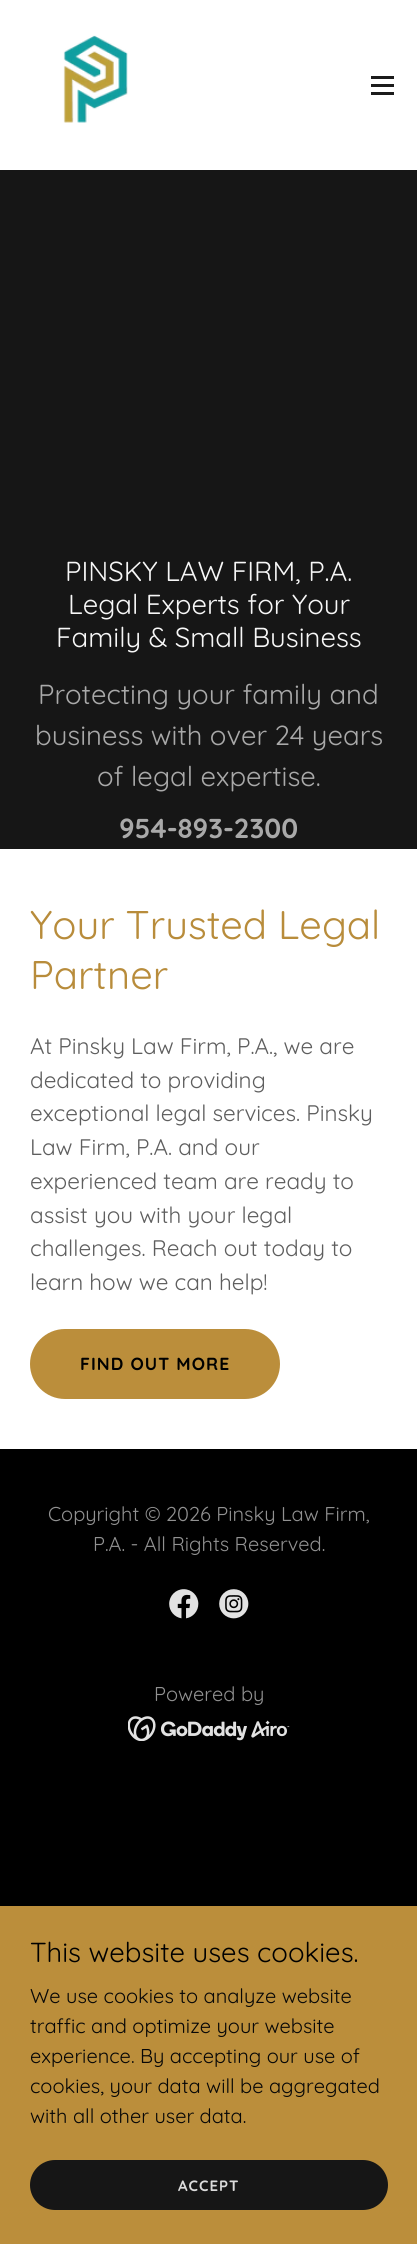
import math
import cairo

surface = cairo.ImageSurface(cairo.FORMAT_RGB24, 417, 2244)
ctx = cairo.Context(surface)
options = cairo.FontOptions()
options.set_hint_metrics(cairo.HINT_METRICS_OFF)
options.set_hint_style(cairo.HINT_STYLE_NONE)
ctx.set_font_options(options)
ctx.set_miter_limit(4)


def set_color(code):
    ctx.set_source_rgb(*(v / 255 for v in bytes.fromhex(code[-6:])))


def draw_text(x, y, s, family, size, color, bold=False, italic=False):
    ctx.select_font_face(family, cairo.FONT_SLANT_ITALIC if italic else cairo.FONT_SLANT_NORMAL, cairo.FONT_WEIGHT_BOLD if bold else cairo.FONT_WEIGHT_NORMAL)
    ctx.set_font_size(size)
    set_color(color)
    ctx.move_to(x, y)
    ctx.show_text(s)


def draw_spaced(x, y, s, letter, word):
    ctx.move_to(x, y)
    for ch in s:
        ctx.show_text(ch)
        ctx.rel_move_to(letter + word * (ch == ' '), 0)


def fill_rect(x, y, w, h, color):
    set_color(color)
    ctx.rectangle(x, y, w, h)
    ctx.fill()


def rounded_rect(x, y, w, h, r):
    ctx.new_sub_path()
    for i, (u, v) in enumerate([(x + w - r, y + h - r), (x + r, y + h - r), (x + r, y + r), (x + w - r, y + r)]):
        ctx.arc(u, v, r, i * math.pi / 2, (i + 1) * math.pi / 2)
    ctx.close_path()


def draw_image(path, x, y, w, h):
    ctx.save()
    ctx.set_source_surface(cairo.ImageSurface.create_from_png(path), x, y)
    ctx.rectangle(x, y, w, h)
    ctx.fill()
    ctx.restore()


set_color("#000000")
ctx.paint()
fill_rect(0, 170, 417, 679, "#161616")
fill_rect(0, 0, 417, 170, "#ffffff")
draw_image("assets/img1.png", 63, 35, 65, 88)
fill_rect(371, 76, 23, 3, "#1b1b1b")
fill_rect(371, 84, 23, 3, "#1b1b1b")
fill_rect(371, 92, 23, 3, "#1b1b1b")
draw_text(65, 581, "PINSKY LAW FIRM, P.A.", "Quicksand", 27.5, "#f7f7f7")
draw_text(68, 614, "Legal Experts for Your", "Quicksand", 27.5, "#f7f7f7")
draw_text(56, 647, "Family & Small Business", "Quicksand", 27.5, "#f7f7f7")
draw_text(38, 704, "Protecting your family and", "Quicksand", 27.5, "#a9a9a9")
draw_text(35, 745, "business with over 24 years", "Quicksand", 27.5, "#a9a9a9")
draw_text(97, 786, "of legal expertise.", "Quicksand", 27.5, "#a9a9a9")
draw_text(119, 838, "954-893-2300", "Quicksand", 27.5, "#a9a9a9", bold=True)
fill_rect(0, 849, 417, 600, "#ffffff")
draw_text(30, 939, "Your Trusted Legal", "Quicksand", 40, "#b88c3b")
draw_text(30, 989, "Partner", "Quicksand", 40, "#b88c3b")
draw_text(30, 1054, "At Pinsky Law Firm, P.A., we are", "Quicksand", 22.5, "#5e5e5e")
draw_text(30, 1088, "dedicated to providing", "Quicksand", 22.5, "#5e5e5e")
draw_text(30, 1121, "exceptional legal services. Pinsky", "Quicksand", 22.5, "#5e5e5e")
draw_text(30, 1155, "Law Firm, P.A. and our", "Quicksand", 22.5, "#5e5e5e")
draw_text(30, 1189, "experienced team are ready to", "Quicksand", 22.5, "#5e5e5e")
draw_text(30, 1223, "assist you with your legal", "Quicksand", 22.5, "#5e5e5e")
draw_text(30, 1256, "challenges. Reach out today to", "Quicksand", 22.5, "#5e5e5e")
draw_text(30, 1290, "learn how we can help!", "Quicksand", 22.5, "#5e5e5e")
set_color("#bb8e3b")
rounded_rect(30, 1329, 250, 70, 35)
ctx.fill()
ctx.select_font_face("Quicksand", cairo.FONT_SLANT_NORMAL, cairo.FONT_WEIGHT_BOLD)
ctx.set_font_size(17.5)
set_color("#000000")
draw_spaced(80, 1370, "FIND OUT MORE", 1.1, 0)
draw_text(48, 1521, "Copyright © 2026 Pinsky Law Firm,", "Quicksand", 20, "#919191")
draw_text(93, 1551, "P.A. - All Rights Reserved.", "Quicksand", 20, "#919191")
draw_image("assets/img2.png", 169, 1589, 30, 30)
draw_image("assets/img3.png", 219, 1589, 30, 30)
draw_text(154, 1701, "Powered by", "Quicksand", 20, "#919191")
draw_image("assets/img4.png", 128, 1716, 162, 25)
fill_rect(0, 1906, 417, 338, "#bb8e3b")
draw_text(30, 1962, "This website uses cookies.", "Quicksand", 27.5, "#000000")
draw_text(30, 2003, "We use cookies to analyze website", "Quicksand", 20, "#070707")
draw_text(30, 2033, "traffic and optimize your website", "Quicksand", 20, "#070707")
draw_text(30, 2063, "experience. By accepting our use of", "Quicksand", 20, "#070707")
draw_text(30, 2093, "cookies, your data will be aggregated", "Quicksand", 20, "#070707")
draw_text(30, 2123, "with all other user data.", "Quicksand", 20, "#070707")
set_color("#161616")
rounded_rect(30, 2160, 358, 50, 25)
ctx.fill()
ctx.select_font_face("Quicksand", cairo.FONT_SLANT_NORMAL, cairo.FONT_WEIGHT_BOLD)
ctx.set_font_size(15)
set_color("#dbdbdb")
draw_spaced(178, 2191, "ACCEPT", 1, 0)
surface.write_to_png("output.png")
